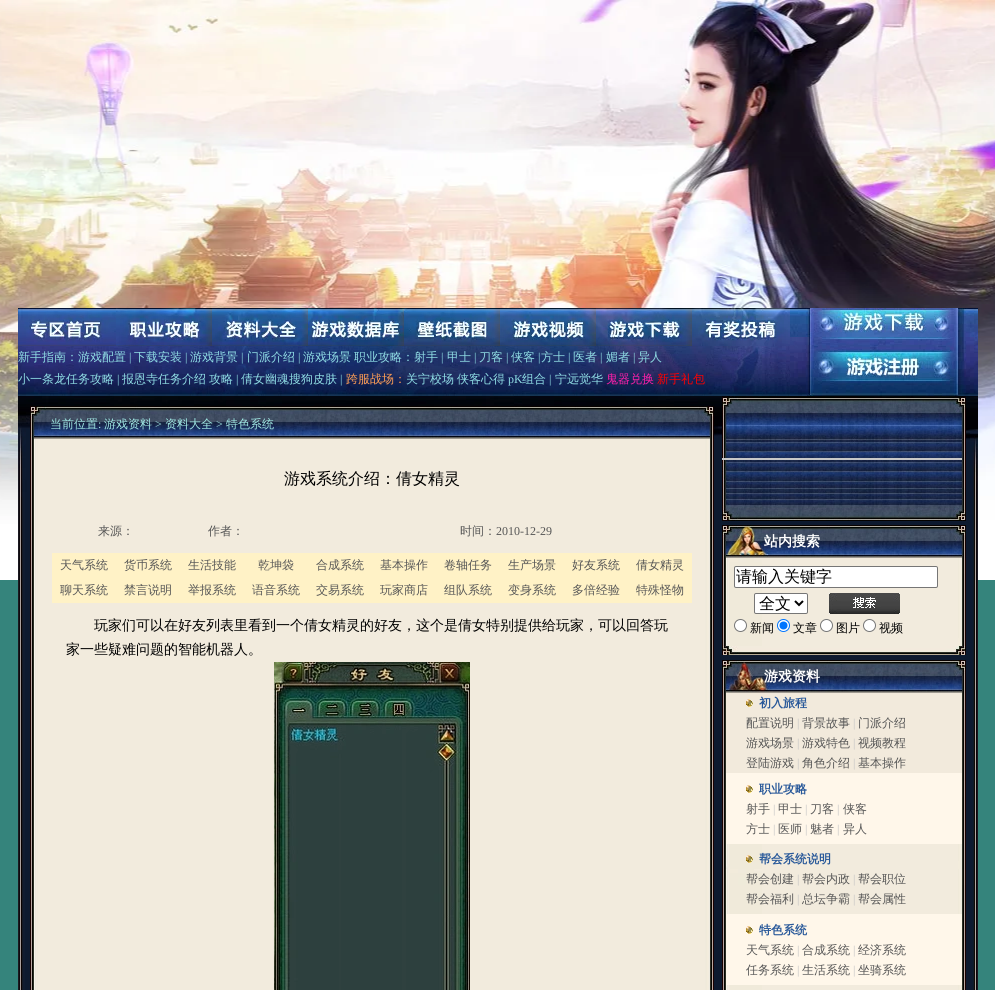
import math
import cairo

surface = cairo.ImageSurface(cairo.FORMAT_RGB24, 995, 990)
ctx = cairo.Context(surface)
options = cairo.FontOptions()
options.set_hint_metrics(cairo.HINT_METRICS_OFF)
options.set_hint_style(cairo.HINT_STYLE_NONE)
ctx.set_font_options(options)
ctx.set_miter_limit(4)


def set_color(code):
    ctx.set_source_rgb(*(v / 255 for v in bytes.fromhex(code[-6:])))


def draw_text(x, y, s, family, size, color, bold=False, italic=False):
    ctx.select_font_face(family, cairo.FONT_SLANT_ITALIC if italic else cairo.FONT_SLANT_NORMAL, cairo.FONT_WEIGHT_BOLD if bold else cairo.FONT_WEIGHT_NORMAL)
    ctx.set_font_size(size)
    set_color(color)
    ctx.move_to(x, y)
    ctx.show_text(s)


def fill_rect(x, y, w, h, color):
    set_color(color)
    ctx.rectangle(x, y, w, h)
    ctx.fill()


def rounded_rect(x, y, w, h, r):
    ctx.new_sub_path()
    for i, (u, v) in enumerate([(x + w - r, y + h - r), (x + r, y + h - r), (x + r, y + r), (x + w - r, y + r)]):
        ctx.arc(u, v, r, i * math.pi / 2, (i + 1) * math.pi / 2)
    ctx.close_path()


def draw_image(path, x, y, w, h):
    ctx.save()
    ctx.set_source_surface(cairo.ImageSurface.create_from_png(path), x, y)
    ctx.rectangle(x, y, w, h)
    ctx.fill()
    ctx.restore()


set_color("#35847c")
ctx.paint()
draw_image("assets/img1.png", 0, 0, 995, 580)
draw_image("assets/img2.png", 18, 308, 98, 38)
draw_image("assets/img3.png", 116, 308, 96, 38)
draw_image("assets/img4.png", 212, 308, 96, 38)
draw_image("assets/img5.png", 308, 308, 96, 38)
draw_image("assets/img6.png", 404, 308, 96, 38)
draw_image("assets/img7.png", 500, 308, 96, 38)
draw_image("assets/img8.png", 596, 308, 96, 38)
draw_image("assets/img9.png", 692, 308, 98, 38)
draw_image("assets/img10.png", 18, 346, 772, 50)
draw_text(18, 361, "新手指南：游戏配置", "WenQuanYi Zen Hei Medium", 12, "#8fdde4")
draw_text(129, 361, "|", "Liberation Serif", 12, "#8fdde4")
draw_text(134, 361, "下载安装", "WenQuanYi Zen Hei Medium", 12, "#8fdde4")
draw_text(185, 361, "|", "Liberation Serif", 12, "#8fdde4")
draw_text(190, 361, "游戏背景", "WenQuanYi Zen Hei Medium", 12, "#8fdde4")
draw_text(241, 361, "|", "Liberation Serif", 12, "#8fdde4")
draw_text(247, 361, "门派介绍", "WenQuanYi Zen Hei Medium", 12, "#8fdde4")
draw_text(298, 361, "|", "Liberation Serif", 12, "#8fdde4")
draw_text(303, 361, "游戏场景", "WenQuanYi Zen Hei Medium", 12, "#8fdde4")
draw_text(354, 361, "职业攻略：射手", "WenQuanYi Zen Hei Medium", 12, "#8fdde4")
draw_text(441, 361, "|", "Liberation Serif", 12, "#8fdde4")
draw_text(447, 361, "甲士", "WenQuanYi Zen Hei Medium", 12, "#8fdde4")
draw_text(474, 361, "|", "Liberation Serif", 12, "#8fdde4")
draw_text(479, 361, "刀客", "WenQuanYi Zen Hei Medium", 12, "#8fdde4")
draw_text(506, 361, "|", "Liberation Serif", 12, "#8fdde4")
draw_text(511, 361, "侠客", "WenQuanYi Zen Hei Medium", 12, "#8fdde4")
draw_text(538, 361, "|", "Liberation Serif", 12, "#8fdde4")
draw_text(541, 361, "方士", "WenQuanYi Zen Hei Medium", 12, "#8fdde4")
draw_text(568, 361, "|", "Liberation Serif", 12, "#8fdde4")
draw_text(573, 361, "医者", "WenQuanYi Zen Hei Medium", 12, "#8fdde4")
draw_text(600, 361, "|", "Liberation Serif", 12, "#8fdde4")
draw_text(606, 361, "媚者", "WenQuanYi Zen Hei Medium", 12, "#8fdde4")
draw_text(633, 361, "|", "Liberation Serif", 12, "#8fdde4")
draw_text(638, 361, "异人", "WenQuanYi Zen Hei Medium", 12, "#8fdde4")
draw_text(18, 383, "小一条龙任务攻略", "WenQuanYi Zen Hei Medium", 12, "#8fdde4")
draw_text(117, 383, "|", "Liberation Serif", 12, "#8fdde4")
draw_text(122, 383, "报恩寺任务介绍", "WenQuanYi Zen Hei Medium", 12, "#8fdde4")
draw_text(209, 383, "攻略", "WenQuanYi Zen Hei Medium", 12, "#8fdde4")
draw_text(236, 383, "|", "Liberation Serif", 12, "#8fdde4")
draw_text(241, 383, "倩女幽魂搜狗皮肤", "WenQuanYi Zen Hei Medium", 12, "#8fdde4")
draw_text(340, 383, "|", "Liberation Serif", 12, "#8fdde4")
draw_text(346, 383, "跨服战场：", "WenQuanYi Zen Hei Medium", 12, "#ff9f55")
draw_text(406, 383, "关宁校场", "WenQuanYi Zen Hei Medium", 12, "#8fdde4")
draw_text(457, 383, "侠客心得", "WenQuanYi Zen Hei Medium", 12, "#8fdde4")
draw_text(508, 383, "pK", "Liberation Serif", 12, "#8fdde4")
draw_text(522, 383, "组合", "WenQuanYi Zen Hei Medium", 12, "#8fdde4")
draw_text(549, 383, "|", "Liberation Serif", 12, "#8fdde4")
draw_text(555, 383, "宁远觉华", "WenQuanYi Zen Hei Medium", 12, "#8fdde4")
draw_text(606, 383, "鬼器兑换", "WenQuanYi Zen Hei Medium", 12, "#ff1faa")
draw_text(657, 383, "新手礼包", "WenQuanYi Zen Hei Medium", 12, "#ff0000")
draw_image("assets/img11.png", 790, 308, 188, 29)
draw_image("assets/img12.png", 790, 337, 4, 59)
draw_image("assets/img13.png", 794, 337, 184, 59)
draw_image("assets/img14.png", 18, 497, 960, 493)
draw_image("assets/img15.png", 18, 396, 960, 101)
draw_image("assets/img16.png", 30, 406, 684, 33)
draw_text(50, 428, "当前位置", "WenQuanYi Zen Hei Medium", 12, "#a0e8e4")
draw_text(98, 428, ":", "Liberation Serif", 12, "#a0e8e4")
draw_text(104, 428, "游戏资料", "WenQuanYi Zen Hei Medium", 12, "#a0e8e4")
draw_text(155, 428, ">", "Liberation Serif", 12, "#a0e8e4")
draw_text(165, 428, "资料大全", "WenQuanYi Zen Hei Medium", 12, "#a0e8e4")
draw_text(216, 428, ">", "Liberation Serif", 12, "#a0e8e4")
draw_text(226, 428, "特色系统", "WenQuanYi Zen Hei Medium", 12, "#a0e8e4")
draw_image("assets/img17.png", 30, 439, 684, 551)
draw_text(284, 484, "游戏系统介绍：倩女精灵", "WenQuanYi Zen Hei Medium", 16, "#000000")
draw_text(98, 535, "来源：", "WenQuanYi Zen Hei Medium", 12, "#565656")
draw_text(208, 535, "作者：", "WenQuanYi Zen Hei Medium", 12, "#565656")
draw_text(460, 535, "时间：", "WenQuanYi Zen Hei Medium", 12, "#565656")
draw_text(496, 535, "2010-12-29", "Liberation Serif", 12, "#565656")
fill_rect(52, 553, 640, 25, "#fff2c6")
draw_text(60, 569, "天气系统", "WenQuanYi Zen Hei Medium", 12, "#565656")
draw_text(124, 569, "货币系统", "WenQuanYi Zen Hei Medium", 12, "#565656")
draw_text(188, 569, "生活技能", "WenQuanYi Zen Hei Medium", 12, "#565656")
draw_text(258, 569, "乾坤袋", "WenQuanYi Zen Hei Medium", 12, "#565656")
draw_text(316, 569, "合成系统", "WenQuanYi Zen Hei Medium", 12, "#565656")
draw_text(380, 569, "基本操作", "WenQuanYi Zen Hei Medium", 12, "#565656")
draw_text(444, 569, "卷轴任务", "WenQuanYi Zen Hei Medium", 12, "#565656")
draw_text(508, 569, "生产场景", "WenQuanYi Zen Hei Medium", 12, "#565656")
draw_text(572, 569, "好友系统", "WenQuanYi Zen Hei Medium", 12, "#565656")
draw_text(636, 569, "倩女精灵", "WenQuanYi Zen Hei Medium", 12, "#565656")
fill_rect(52, 578, 640, 25, "#fff2c6")
draw_text(60, 594, "聊天系统", "WenQuanYi Zen Hei Medium", 12, "#565656")
draw_text(124, 594, "禁言说明", "WenQuanYi Zen Hei Medium", 12, "#565656")
draw_text(188, 594, "举报系统", "WenQuanYi Zen Hei Medium", 12, "#565656")
draw_text(252, 594, "语音系统", "WenQuanYi Zen Hei Medium", 12, "#565656")
draw_text(316, 594, "交易系统", "WenQuanYi Zen Hei Medium", 12, "#565656")
draw_text(380, 594, "玩家商店", "WenQuanYi Zen Hei Medium", 12, "#565656")
draw_text(444, 594, "组队系统", "WenQuanYi Zen Hei Medium", 12, "#565656")
draw_text(508, 594, "变身系统", "WenQuanYi Zen Hei Medium", 12, "#565656")
draw_text(572, 594, "多倍经验", "WenQuanYi Zen Hei Medium", 12, "#565656")
draw_text(636, 594, "特殊怪物", "WenQuanYi Zen Hei Medium", 12, "#565656")
draw_text(94, 630, "玩家们可以在好友列表里看到一个倩女精灵的好友，这个是倩女特别提供给玩家，可以回答玩", "WenQuanYi Zen Hei Medium", 14, "#000000")
draw_text(66, 654, "家一些疑难问题的智能机器人。", "WenQuanYi Zen Hei Medium", 14, "#000000")
draw_image("assets/img18.png", 274, 662, 196, 328)
draw_image("assets/img19.png", 722, 396, 244, 125)
fill_rect(722, 458, 240, 2, "#c8c8c8")
draw_image("assets/img20.png", 722, 525, 244, 33)
draw_text(764, 546, "站内搜索", "WenQuanYi Zen Hei", 14, "#ffffff", bold=True)
draw_image("assets/img21.png", 722, 558, 244, 88)
rounded_rect(734.5, 566.5, 203, 21, 1.5)
ctx.fill_preserve()
set_color("#767676")
ctx.set_line_width(1)
ctx.stroke()
draw_text(736, 582, "请输入关键字", "WenQuanYi Zen Hei Medium", 16, "#000000")
set_color("#ffffff")
rounded_rect(754.5, 593.5, 53, 20, 1.5)
ctx.fill_preserve()
set_color("#767676")
ctx.stroke()
ctx.new_path()
ctx.move_to(795, 601)
ctx.line_to(799, 605)
ctx.line_to(803, 601)
set_color("#000000")
ctx.set_line_width(2)
ctx.stroke()
draw_text(759, 609, "全文", "WenQuanYi Zen Hei Medium", 16, "#000000")
draw_image("assets/img22.png", 829, 593, 71, 21)
set_color("#ffffff")
ctx.arc(740.5, 625.5, 6, 0, 2 * math.pi)
ctx.fill_preserve()
set_color("#767676")
ctx.set_line_width(1)
ctx.stroke()
draw_text(750, 632, "新闻", "WenQuanYi Zen Hei Medium", 12, "#000000")
set_color("#ffffff")
ctx.new_path()
ctx.arc(783.5, 625.5, 6, 0, 2 * math.pi)
ctx.fill_preserve()
set_color("#0075ff")
ctx.stroke()
ctx.arc(783.5, 625.5, 4, 0, 2 * math.pi)
ctx.fill()
draw_text(793, 632, "文章", "WenQuanYi Zen Hei Medium", 12, "#000000")
set_color("#ffffff")
ctx.new_path()
ctx.arc(826.5, 625.5, 6, 0, 2 * math.pi)
ctx.fill_preserve()
set_color("#767676")
ctx.stroke()
draw_text(836, 632, "图片", "WenQuanYi Zen Hei Medium", 12, "#000000")
set_color("#ffffff")
ctx.new_path()
ctx.arc(869.5, 625.5, 6, 0, 2 * math.pi)
ctx.fill_preserve()
set_color("#767676")
ctx.stroke()
draw_text(879, 632, "视频", "WenQuanYi Zen Hei Medium", 12, "#000000")
draw_image("assets/img23.png", 722, 646, 244, 9)
draw_image("assets/img24.png", 722, 660, 244, 33)
draw_text(764, 681, "游戏资料", "WenQuanYi Zen Hei", 14, "#ffffff", bold=True)
draw_image("assets/img25.png", 722, 693, 244, 297)
fill_rect(726, 693, 236, 80, "#f2eadc")
draw_image("assets/img26.png", 746, 699, 7, 8)
draw_text(759, 707, "初入旅程", "WenQuanYi Zen Hei", 12, "#285899", bold=True)
draw_text(746, 727, "配置说明", "WenQuanYi Zen Hei Medium", 12, "#565656")
draw_text(797, 727, "|", "Liberation Serif", 12, "#c3c3c3")
draw_text(802, 727, "背景故事", "WenQuanYi Zen Hei Medium", 12, "#565656")
draw_text(853, 727, "|", "Liberation Serif", 12, "#c3c3c3")
draw_text(858, 727, "门派介绍", "WenQuanYi Zen Hei Medium", 12, "#565656")
draw_text(746, 747, "游戏场景", "WenQuanYi Zen Hei Medium", 12, "#565656")
draw_text(797, 747, "|", "Liberation Serif", 12, "#c3c3c3")
draw_text(802, 747, "游戏特色", "WenQuanYi Zen Hei Medium", 12, "#565656")
draw_text(853, 747, "|", "Liberation Serif", 12, "#c3c3c3")
draw_text(858, 747, "视频教程", "WenQuanYi Zen Hei Medium", 12, "#565656")
draw_text(746, 767, "登陆游戏", "WenQuanYi Zen Hei Medium", 12, "#565656")
draw_text(797, 767, "|", "Liberation Serif", 12, "#c3c3c3")
draw_text(802, 767, "角色介绍", "WenQuanYi Zen Hei Medium", 12, "#565656")
draw_text(853, 767, "|", "Liberation Serif", 12, "#c3c3c3")
draw_text(858, 767, "基本操作", "WenQuanYi Zen Hei Medium", 12, "#565656")
fill_rect(726, 773, 236, 71, "#fff7ea")
draw_image("assets/img27.png", 746, 785, 7, 8)
draw_text(759, 793, "职业攻略", "WenQuanYi Zen Hei", 12, "#285899", bold=True)
draw_text(746, 813, "射手", "WenQuanYi Zen Hei Medium", 12, "#565656")
draw_text(773, 813, "|", "Liberation Serif", 12, "#c3c3c3")
draw_text(778, 813, "甲士", "WenQuanYi Zen Hei Medium", 12, "#565656")
draw_text(805, 813, "|", "Liberation Serif", 12, "#c3c3c3")
draw_text(810, 813, "刀客", "WenQuanYi Zen Hei Medium", 12, "#565656")
draw_text(837, 813, "|", "Liberation Serif", 12, "#c3c3c3")
draw_text(843, 813, "侠客", "WenQuanYi Zen Hei Medium", 12, "#565656")
draw_text(746, 833, "方士", "WenQuanYi Zen Hei Medium", 12, "#565656")
draw_text(773, 833, "|", "Liberation Serif", 12, "#c3c3c3")
draw_text(778, 833, "医师", "WenQuanYi Zen Hei Medium", 12, "#565656")
draw_text(805, 833, "|", "Liberation Serif", 12, "#c3c3c3")
draw_text(810, 833, "魅者", "WenQuanYi Zen Hei Medium", 12, "#565656")
draw_text(837, 833, "|", "Liberation Serif", 12, "#c3c3c3")
draw_text(843, 833, "异人", "WenQuanYi Zen Hei Medium", 12, "#565656")
draw_image("assets/img28.png", 746, 855, 7, 8)
draw_text(759, 863, "帮会系统说明", "WenQuanYi Zen Hei", 12, "#285899", bold=True)
draw_text(746, 883, "帮会创建", "WenQuanYi Zen Hei Medium", 12, "#565656")
draw_text(797, 883, "|", "Liberation Serif", 12, "#c3c3c3")
draw_text(802, 883, "帮会内政", "WenQuanYi Zen Hei Medium", 12, "#565656")
draw_text(853, 883, "|", "Liberation Serif", 12, "#c3c3c3")
draw_text(858, 883, "帮会职位", "WenQuanYi Zen Hei Medium", 12, "#565656")
draw_text(746, 903, "帮会福利", "WenQuanYi Zen Hei Medium", 12, "#565656")
draw_text(797, 903, "|", "Liberation Serif", 12, "#c3c3c3")
draw_text(802, 903, "总坛争霸", "WenQuanYi Zen Hei Medium", 12, "#565656")
draw_text(853, 903, "|", "Liberation Serif", 12, "#c3c3c3")
draw_text(858, 903, "帮会属性", "WenQuanYi Zen Hei Medium", 12, "#565656")
fill_rect(726, 914, 236, 71, "#fff7ea")
draw_image("assets/img27.png", 746, 926, 7, 8)
draw_text(759, 934, "特色系统", "WenQuanYi Zen Hei", 12, "#285899", bold=True)
draw_text(746, 954, "天气系统", "WenQuanYi Zen Hei Medium", 12, "#565656")
draw_text(797, 954, "|", "Liberation Serif", 12, "#c3c3c3")
draw_text(802, 954, "合成系统", "WenQuanYi Zen Hei Medium", 12, "#565656")
draw_text(853, 954, "|", "Liberation Serif", 12, "#c3c3c3")
draw_text(858, 954, "经济系统", "WenQuanYi Zen Hei Medium", 12, "#565656")
draw_text(746, 974, "任务系统", "WenQuanYi Zen Hei Medium", 12, "#565656")
draw_text(797, 974, "|", "Liberation Serif", 12, "#c3c3c3")
draw_text(802, 974, "生活系统", "WenQuanYi Zen Hei Medium", 12, "#565656")
draw_text(853, 974, "|", "Liberation Serif", 12, "#c3c3c3")
draw_text(858, 974, "坐骑系统", "WenQuanYi Zen Hei Medium", 12, "#565656")
surface.write_to_png("output.png")
